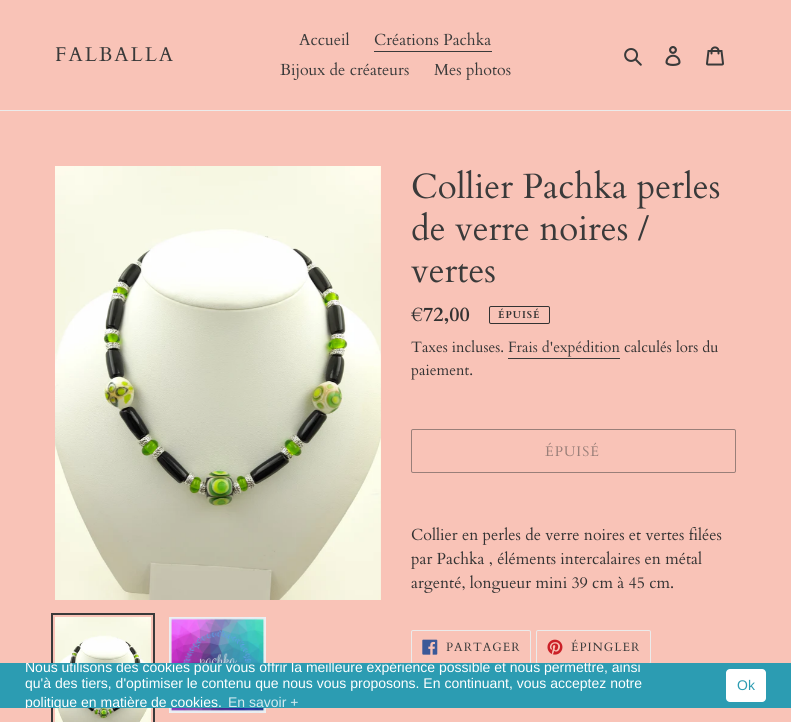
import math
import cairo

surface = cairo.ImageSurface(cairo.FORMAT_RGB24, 791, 722)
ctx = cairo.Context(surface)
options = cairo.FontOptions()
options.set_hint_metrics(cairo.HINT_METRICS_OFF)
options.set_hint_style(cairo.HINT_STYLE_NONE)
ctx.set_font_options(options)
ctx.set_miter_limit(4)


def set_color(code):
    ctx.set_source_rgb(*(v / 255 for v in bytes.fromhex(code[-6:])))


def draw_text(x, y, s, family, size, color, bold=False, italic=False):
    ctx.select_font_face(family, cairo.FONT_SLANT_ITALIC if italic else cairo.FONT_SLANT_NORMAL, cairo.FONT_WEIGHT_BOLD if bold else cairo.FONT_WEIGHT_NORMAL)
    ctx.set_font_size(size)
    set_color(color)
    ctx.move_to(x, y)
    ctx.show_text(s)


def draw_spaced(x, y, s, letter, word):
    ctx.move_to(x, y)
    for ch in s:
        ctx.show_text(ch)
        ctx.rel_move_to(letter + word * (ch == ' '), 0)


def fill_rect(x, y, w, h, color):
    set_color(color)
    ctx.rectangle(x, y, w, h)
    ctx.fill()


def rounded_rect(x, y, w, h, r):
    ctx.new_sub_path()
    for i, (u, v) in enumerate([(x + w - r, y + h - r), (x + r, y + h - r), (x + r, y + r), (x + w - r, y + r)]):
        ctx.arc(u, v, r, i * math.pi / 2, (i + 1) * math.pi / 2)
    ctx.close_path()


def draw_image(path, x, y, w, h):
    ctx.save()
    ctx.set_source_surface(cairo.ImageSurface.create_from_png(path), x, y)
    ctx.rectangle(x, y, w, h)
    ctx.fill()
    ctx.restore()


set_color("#f9c3b7")
ctx.paint()
fill_rect(0, 110, 791, 1, "#ebebeb")
ctx.select_font_face("Cardo")
ctx.set_font_size(20)
set_color("#3a3a3a")
draw_spaced(55, 61, "FALBALLA", 2, 0)
draw_text(299, 45, "Accueil", "Cardo", 16, "#3a3a3a")
draw_text(374, 45, "Créations Pachka", "Cardo", 16, "#3a3a3a")
fill_rect(374, 51, 118, 1, "#3a3a3a")
draw_text(280, 75, "Bijoux de créateurs", "Cardo", 16, "#3a3a3a")
draw_text(434, 75, "Mes photos", "Cardo", 16, "#3a3a3a")
draw_image("assets/img1.png", 624, 48, 18, 18)
draw_image("assets/img2.png", 665, 46, 16, 20)
draw_image("assets/img3.png", 706, 46, 18, 20)
draw_image("assets/img4.png", 55, 166, 326, 434)
ctx.rectangle(52, 614, 102, 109)
ctx.stroke()
draw_image("assets/img5.png", 55, 617, 96, 105)
draw_image("assets/img6.png", 169, 617, 97, 96)
draw_text(411, 198, "Collier Pachka perles", "Cardo", 35, "#3a3a3a")
draw_text(411, 240, "de verre noires /", "Cardo", 35, "#3a3a3a")
draw_text(411, 282, "vertes", "Cardo", 35, "#3a3a3a")
draw_text(411, 321, "€72,00", "Cardo", 20, "#333232", bold=True)
rounded_rect(489.5, 306.5, 60, 17, 1.5)
ctx.set_line_width(1)
ctx.stroke()
ctx.set_font_size(10)
draw_spaced(498, 318, "ÉPUISÉ", 1, 0)
draw_text(411, 352, "Taxes incluses.", "Cardo", 15, "#333232")
draw_text(508, 352, "Frais d'expédition", "Cardo", 15, "#3a3a3a")
fill_rect(508, 358, 112, 1, "#3a3a3a")
draw_text(624, 352, "calculés lors du", "Cardo", 15, "#333232")
draw_text(411, 375, "paiement.", "Cardo", 15, "#333232")
rounded_rect(411.5, 429.5, 324, 43, 1.5)
set_color("#9a7f79")
ctx.stroke()
ctx.set_font_size(14)
draw_spaced(545, 456, "ÉPUISÉ", 1, 0)
draw_text(411, 540, "Collier en perles de verre noires et vertes filées", "Cardo", 16, "#333232")
draw_text(411, 564, "par Pachka , éléments intercalaires en métal", "Cardo", 16, "#333232")
draw_text(411, 588, "argenté, longueur mini 39 cm à 45 cm.", "Cardo", 16, "#333232")
rounded_rect(411.5, 630.5, 119, 33, 1.5)
set_color("#ebebeb")
ctx.stroke()
draw_image("assets/img7.png", 422, 639, 16, 16)
ctx.set_font_size(12)
set_color("#3a3a3a")
draw_spaced(446, 651, "PARTAGER", 1, 0)
rounded_rect(536.5, 630.5, 114, 33, 1.5)
set_color("#ebebeb")
ctx.stroke()
draw_image("assets/img8.png", 547, 639, 16, 16)
set_color("#3a3a3a")
draw_spaced(571, 651, "ÉPINGLER", 1, 0)
fill_rect(0, 663, 791, 45, "#2c9cb2")
ctx.save()
ctx.rectangle(0, 663, 791, 45)
ctx.clip()
draw_text(25, 672, "Nous utilisons des cookies pour vous offrir la meilleure expérience possible et nous permettre, ainsi", "Liberation Sans", 14, "#ffffff")
ctx.restore()
draw_text(25, 688, "qu'à des tiers, d'optimiser le contenu que nous vous proposons. En continuant, vous acceptez notre", "Liberation Sans", 14, "#ffffff")
ctx.save()
ctx.rectangle(0, 663, 791, 45)
ctx.clip()
draw_text(25, 707, "politique en matière de cookies.", "Liberation Sans", 14, "#ffffff")
ctx.restore()
draw_text(228, 707, "En savoir +", "Liberation Sans", 14, "#d5ebf0")
set_color("#ffffff")
rounded_rect(726, 669, 40, 33, 4)
ctx.fill()
draw_text(737, 690, "Ok", "Liberation Sans", 14, "#2c9cb2")
surface.write_to_png("output.png")
